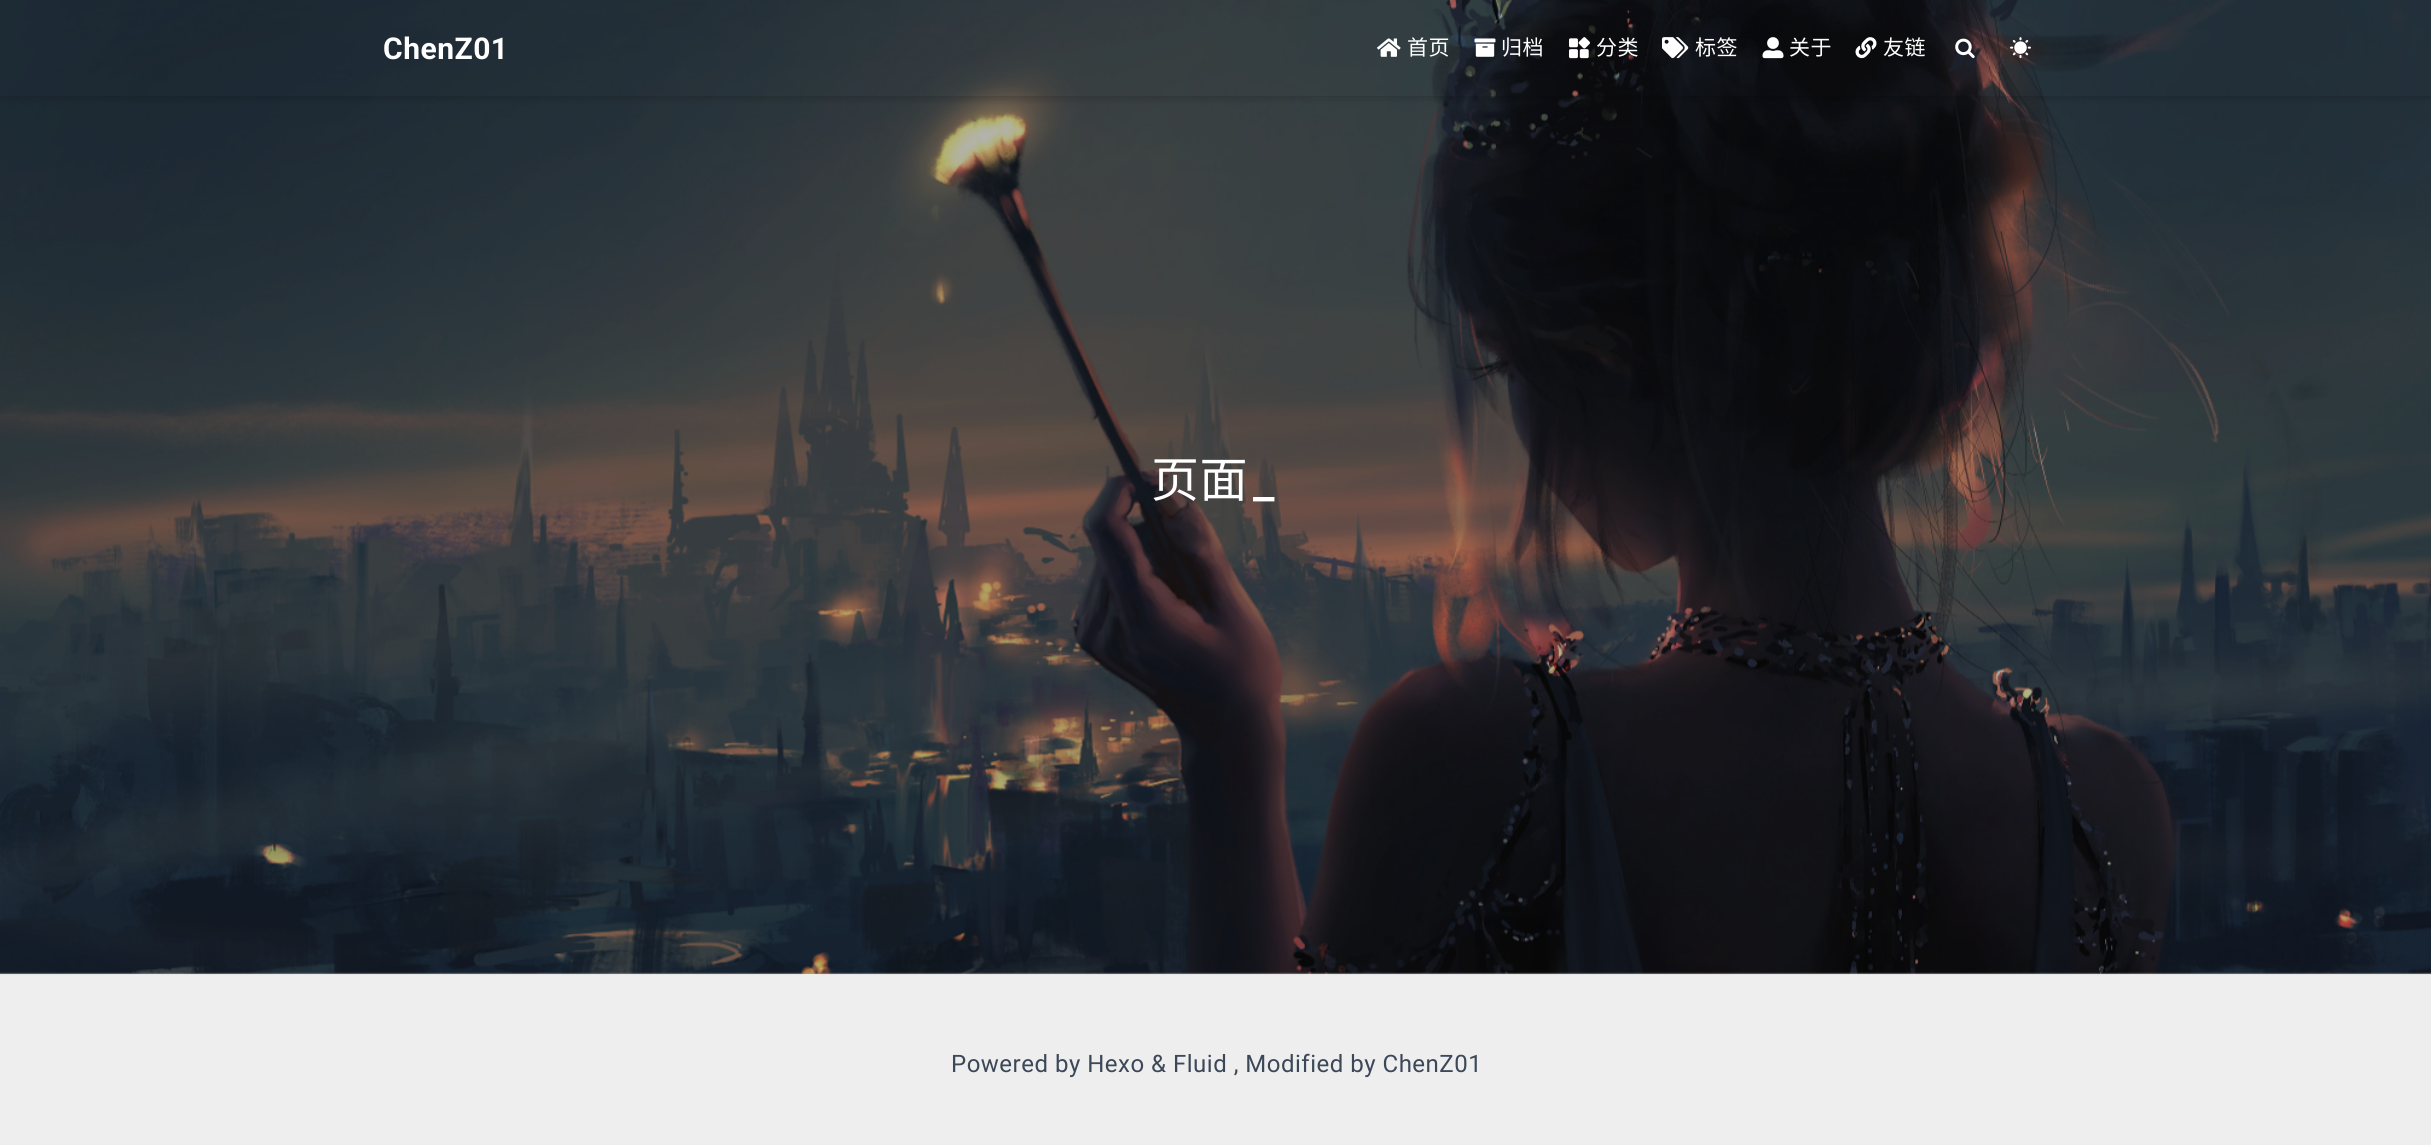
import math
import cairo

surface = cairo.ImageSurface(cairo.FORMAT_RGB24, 2431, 1145)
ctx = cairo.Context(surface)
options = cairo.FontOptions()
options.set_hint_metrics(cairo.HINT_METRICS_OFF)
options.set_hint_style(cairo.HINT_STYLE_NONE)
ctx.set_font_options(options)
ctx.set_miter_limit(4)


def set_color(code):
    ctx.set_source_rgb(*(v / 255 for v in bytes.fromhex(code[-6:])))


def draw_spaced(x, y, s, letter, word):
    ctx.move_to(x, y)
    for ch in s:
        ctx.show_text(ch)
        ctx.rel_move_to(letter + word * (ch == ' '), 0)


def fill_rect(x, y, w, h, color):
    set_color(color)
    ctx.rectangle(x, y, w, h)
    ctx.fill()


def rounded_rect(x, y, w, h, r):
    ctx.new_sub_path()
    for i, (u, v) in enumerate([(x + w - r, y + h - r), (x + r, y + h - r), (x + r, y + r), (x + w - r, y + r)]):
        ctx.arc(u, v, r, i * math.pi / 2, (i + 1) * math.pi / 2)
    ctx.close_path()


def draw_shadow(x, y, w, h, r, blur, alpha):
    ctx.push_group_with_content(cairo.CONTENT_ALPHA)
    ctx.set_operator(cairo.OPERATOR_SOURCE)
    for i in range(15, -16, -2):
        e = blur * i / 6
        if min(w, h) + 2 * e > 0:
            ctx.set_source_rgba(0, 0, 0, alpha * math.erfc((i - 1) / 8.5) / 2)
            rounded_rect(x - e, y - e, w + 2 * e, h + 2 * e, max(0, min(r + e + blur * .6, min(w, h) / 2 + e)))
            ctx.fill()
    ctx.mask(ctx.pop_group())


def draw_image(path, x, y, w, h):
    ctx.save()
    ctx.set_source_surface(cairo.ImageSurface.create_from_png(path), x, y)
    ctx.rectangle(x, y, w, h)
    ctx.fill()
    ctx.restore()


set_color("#eeeeee")
ctx.paint()
fill_rect(0, 972, 2431, 2, "#a7a7a7")
draw_image("assets/img9.png", 0, 0, 2431, 975)
ctx.save()
ctx.rectangle(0, 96, 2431, 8)
ctx.clip()
set_color("#000000")
draw_shadow(0, 3, 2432, 96, 0, 4, 0.16)
ctx.restore()
ctx.select_font_face("Roboto", cairo.FONT_SLANT_NORMAL, cairo.FONT_WEIGHT_BOLD)
ctx.set_font_size(30)
set_color("#ffffff")
draw_spaced(383, 59, "ChenZ01", 0.5, 0)
draw_image("assets/img1.png", 1377, 38, 24, 19)
ctx.select_font_face("Noto Sans CJK SC")
ctx.set_font_size(21)
draw_spaced(1407, 55, "首页", 0.5, 0)
draw_image("assets/img2.png", 1474, 38, 22, 19)
draw_spaced(1501, 55, "归档", 0.5, 0)
draw_image("assets/img3.png", 1569, 37, 21, 22)
draw_spaced(1596, 55, "分类", 0.5, 0)
draw_image("assets/img4.png", 1662, 37, 27, 22)
draw_spaced(1695, 55, "标签", 0.5, 0)
draw_image("assets/img5.png", 1762, 37, 22, 22)
draw_spaced(1789, 55, "关于", 0.5, 0)
draw_image("assets/img6.png", 1855, 37, 22, 22)
draw_spaced(1883, 55, "友链", 0.5, 0)
draw_image("assets/img7.png", 1955, 38, 20, 21)
draw_image("assets/img8.png", 2010, 37, 21, 22)
ctx.set_font_size(48)
draw_spaced(1151, 497, "页面", 0.5, 0)
ctx.select_font_face("Roboto Medium")
draw_spaced(1253, 497, "_", 0.5, 0)
ctx.select_font_face("Roboto")
ctx.set_font_size(24)
set_color("#3c4858")
draw_spaced(951, 1072, "Powered by Hexo & Fluid , Modified by ChenZ01", 0.5, 0)
surface.write_to_png("output.png")
